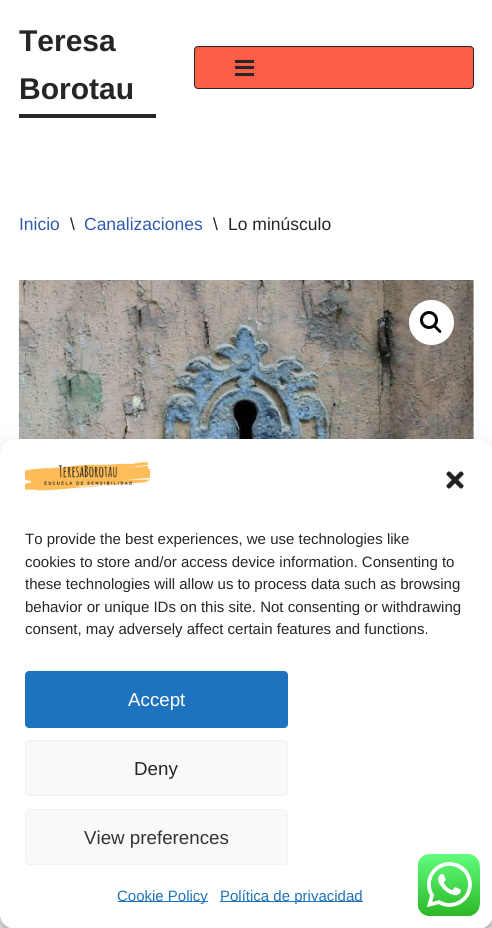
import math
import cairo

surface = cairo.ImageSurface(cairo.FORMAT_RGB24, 492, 928)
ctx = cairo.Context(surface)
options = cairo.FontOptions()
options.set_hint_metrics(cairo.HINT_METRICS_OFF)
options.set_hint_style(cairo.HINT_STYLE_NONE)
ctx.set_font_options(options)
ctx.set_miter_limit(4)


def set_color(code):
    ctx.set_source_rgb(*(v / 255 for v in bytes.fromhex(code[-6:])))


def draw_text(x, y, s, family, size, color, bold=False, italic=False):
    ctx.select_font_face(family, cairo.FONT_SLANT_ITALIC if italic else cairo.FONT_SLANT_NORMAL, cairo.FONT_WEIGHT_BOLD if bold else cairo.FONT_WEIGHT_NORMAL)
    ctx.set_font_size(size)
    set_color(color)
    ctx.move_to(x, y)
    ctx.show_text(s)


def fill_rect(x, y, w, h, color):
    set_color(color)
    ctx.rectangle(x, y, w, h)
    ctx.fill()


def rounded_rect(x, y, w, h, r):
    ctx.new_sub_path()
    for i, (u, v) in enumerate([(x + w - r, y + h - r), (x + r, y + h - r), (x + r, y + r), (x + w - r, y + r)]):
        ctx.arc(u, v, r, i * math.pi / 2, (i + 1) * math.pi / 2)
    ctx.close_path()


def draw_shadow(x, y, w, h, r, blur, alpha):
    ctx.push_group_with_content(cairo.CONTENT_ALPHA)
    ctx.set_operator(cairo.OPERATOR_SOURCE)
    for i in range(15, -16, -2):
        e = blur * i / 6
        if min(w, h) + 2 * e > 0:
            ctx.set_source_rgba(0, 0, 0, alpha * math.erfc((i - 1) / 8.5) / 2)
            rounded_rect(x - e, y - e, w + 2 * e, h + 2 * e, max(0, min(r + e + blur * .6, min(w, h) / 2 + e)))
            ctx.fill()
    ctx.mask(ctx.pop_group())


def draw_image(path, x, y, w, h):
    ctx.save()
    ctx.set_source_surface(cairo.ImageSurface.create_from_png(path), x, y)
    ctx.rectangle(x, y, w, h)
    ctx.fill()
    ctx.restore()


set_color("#ffffff")
ctx.paint()
fill_rect(19, 114, 137, 4, "#272626")
draw_text(19, 51, "Teresa", "Liberation Sans", 30, "#272626", bold=True)
draw_text(19, 99, "Borotau", "Liberation Sans", 30, "#272626", bold=True)
set_color("#fc5f45")
rounded_rect(194.5, 46.5, 279, 42, 3.5)
ctx.fill_preserve()
set_color("#272626")
ctx.set_line_width(1)
ctx.stroke()
fill_rect(235, 60, 19, 3, "#272626")
fill_rect(235, 66, 19, 3, "#272626")
fill_rect(235, 73, 19, 3, "#272626")
draw_text(19, 230, "Inicio", "Liberation Sans", 17.5, "#2f5aae")
draw_text(70, 230, "\\", "Liberation Sans", 17.5, "#272626")
draw_text(84, 230, "Canalizaciones", "Liberation Sans", 17.5, "#2f5aae")
draw_text(213, 230, "\\", "Liberation Sans", 17.5, "#272626")
draw_text(228, 230, "Lo minúsculo", "Liberation Sans", 17.5, "#272626")
draw_image("assets/img1.png", 18, 280, 456, 159)
set_color("#ffffff")
ctx.arc(431.5, 322.5, 22.5, 0, 2 * math.pi)
ctx.fill()
ctx.arc(429, 320, 7.5, 0, 2 * math.pi)
set_color("#000000")
ctx.set_line_width(3)
ctx.stroke()
ctx.new_path()
ctx.move_to(434, 325.5)
ctx.curve_to(435.5, 324, 437.5, 327.5, 438.5, 328)
ctx.curve_to(439, 329, 442.5, 331, 441, 332.5)
ctx.curve_to(439.5, 334, 437.5, 330.5, 436.5, 330)
ctx.curve_to(436, 329, 432.5, 327, 434, 325.5)
ctx.close_path()
ctx.fill()
set_color("#000000")
draw_shadow(0, 446, 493, 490, 15, 4, 0.23)
draw_shadow(0, 451, 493, 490, 15, 12.5, 0.19)
set_color("#ffffff")
rounded_rect(0, 439, 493, 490, 15)
ctx.fill()
draw_image("assets/img2.png", 25, 461, 125, 30)
draw_image("assets/img3.png", 446, 471, 18, 18)
draw_text(25, 544, "To provide the best experiences, we use technologies like", "Liberation Sans", 15, "#272626")
draw_text(25, 567, "cookies to store and/or access device information. Consenting to", "Liberation Sans", 15, "#272626")
draw_text(25, 589, "these technologies will allow us to process data such as browsing", "Liberation Sans", 15, "#272626")
draw_text(25, 612, "behavior or unique IDs on this site. Not consenting or withdrawing", "Liberation Sans", 15, "#272626")
draw_text(25, 634, "consent, may adversely affect certain features and functions.", "Liberation Sans", 15, "#272626")
set_color("#1e73be")
rounded_rect(25.5, 671.5, 262, 56, 3.5)
ctx.fill_preserve()
ctx.set_line_width(1)
ctx.stroke()
draw_text(128, 706, "Accept", "Liberation Sans", 18.75, "#ffffff")
set_color("#f9f9f9")
rounded_rect(25.5, 740.5, 262, 55, 3.5)
ctx.fill_preserve()
set_color("#f2f2f2")
ctx.stroke()
draw_text(134, 775, "Deny", "Liberation Sans", 18.75, "#272626")
set_color("#f9f9f9")
rounded_rect(25.5, 809.5, 262, 55, 3.5)
ctx.fill_preserve()
set_color("#f2f2f2")
ctx.stroke()
draw_text(84, 844, "View preferences", "Liberation Sans", 18.75, "#333333")
fill_rect(118, 901, 90, 1, "#1e73be")
draw_text(117, 901, "Cookie Policy", "Liberation Sans", 15, "#1e73be")
fill_rect(220, 901, 143, 1, "#1e73be")
draw_text(220, 901, "Política de privacidad", "Liberation Sans", 15, "#1e73be")
draw_image("assets/img4.png", 418, 854, 62, 62)
surface.write_to_png("output.png")
